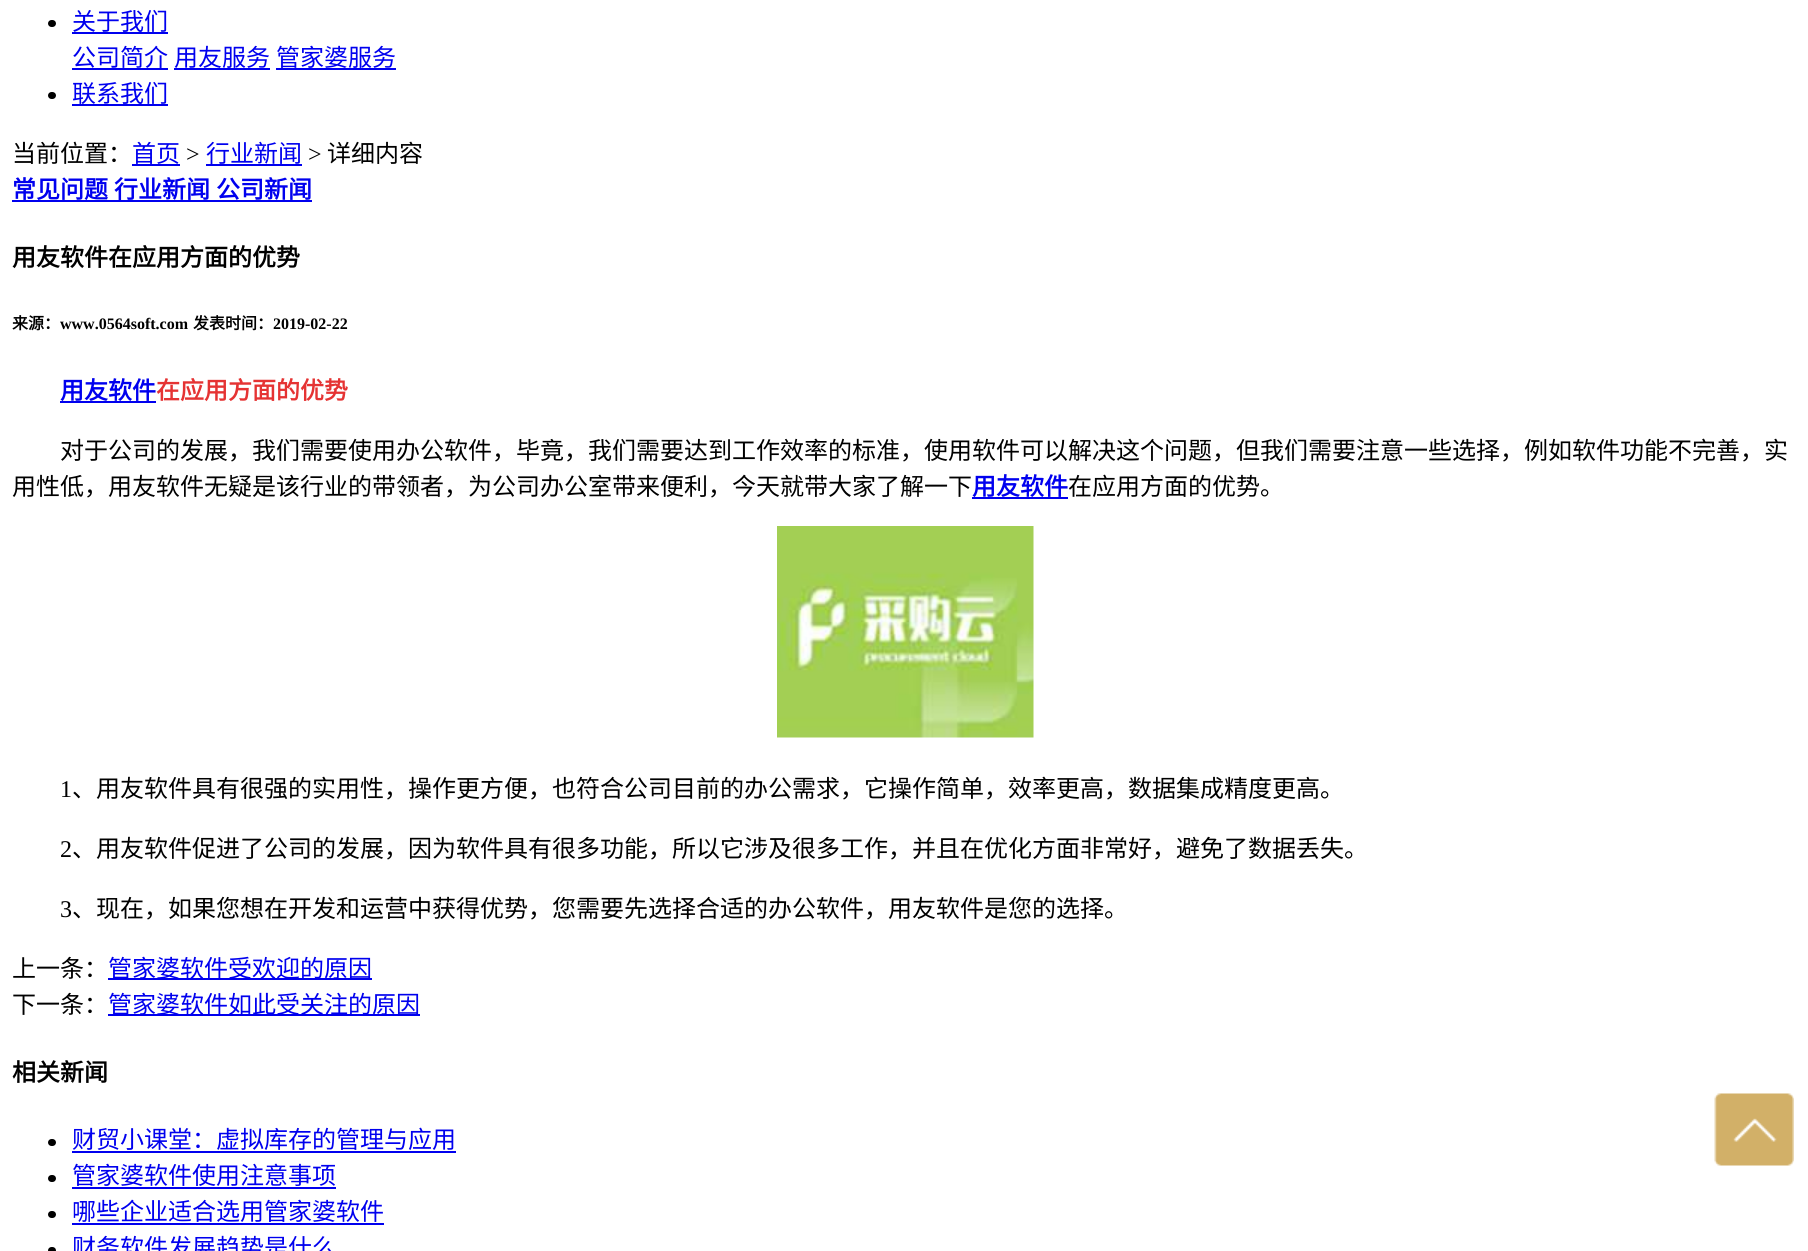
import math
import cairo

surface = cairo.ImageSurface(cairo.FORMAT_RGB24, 1808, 1251)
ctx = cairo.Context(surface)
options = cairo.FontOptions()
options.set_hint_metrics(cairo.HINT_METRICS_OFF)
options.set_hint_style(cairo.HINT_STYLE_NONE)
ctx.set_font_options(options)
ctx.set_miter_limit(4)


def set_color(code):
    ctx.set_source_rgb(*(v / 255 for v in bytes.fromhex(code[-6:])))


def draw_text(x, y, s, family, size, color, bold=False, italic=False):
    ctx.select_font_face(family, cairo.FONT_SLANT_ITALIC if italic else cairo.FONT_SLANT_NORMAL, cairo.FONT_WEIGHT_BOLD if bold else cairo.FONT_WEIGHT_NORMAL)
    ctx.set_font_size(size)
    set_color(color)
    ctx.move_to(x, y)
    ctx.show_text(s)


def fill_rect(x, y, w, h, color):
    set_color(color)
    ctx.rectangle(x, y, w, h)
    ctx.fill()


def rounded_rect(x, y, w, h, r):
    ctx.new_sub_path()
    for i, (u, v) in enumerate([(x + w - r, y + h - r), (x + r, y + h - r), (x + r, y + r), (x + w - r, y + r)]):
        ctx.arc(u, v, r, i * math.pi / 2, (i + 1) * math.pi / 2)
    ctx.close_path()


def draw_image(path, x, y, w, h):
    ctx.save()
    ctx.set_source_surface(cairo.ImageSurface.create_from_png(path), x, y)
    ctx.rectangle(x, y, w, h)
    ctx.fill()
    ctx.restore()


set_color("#ffffff")
ctx.paint()
set_color("#000000")
rounded_rect(48, 20, 8, 7, 3.5)
ctx.fill()
draw_text(72, 30, "关于我们", "Noto Sans CJK SC", 24, "#0000ee")
fill_rect(72, 32, 96, 2, "#0000ee")
draw_text(72, 66, "公司简介", "Noto Sans CJK SC", 24, "#0000ee")
fill_rect(72, 68, 96, 2, "#0000ee")
draw_text(174, 66, "用友服务", "Noto Sans CJK SC", 24, "#0000ee")
fill_rect(174, 68, 96, 2, "#0000ee")
draw_text(276, 66, "管家婆服务", "Noto Sans CJK SC", 24, "#0000ee")
fill_rect(276, 68, 120, 2, "#0000ee")
set_color("#000000")
rounded_rect(48, 92, 8, 7, 3.5)
ctx.fill()
fill_rect(72, 104, 96, 2, "#0000ee")
draw_text(72, 102, "联系我们", "Noto Sans CJK SC", 24, "#0000ee")
draw_text(12, 162, "当前位置：", "Noto Sans CJK SC", 24, "#000000")
draw_text(132, 162, "首页", "Noto Sans CJK SC", 24, "#0000ee")
fill_rect(132, 164, 48, 2, "#0000ee")
draw_text(186, 162, ">", "Liberation Serif", 24, "#000000")
draw_text(206, 162, "行业新闻", "Noto Sans CJK SC", 24, "#0000ee")
fill_rect(206, 164, 96, 2, "#0000ee")
draw_text(308, 162, ">", "Liberation Serif", 24, "#000000")
draw_text(327, 162, "详细内容", "Noto Sans CJK SC", 24, "#000000")
draw_text(12, 198, "常见问题", "Noto Sans CJK SC", 24, "#0000ee", bold=True)
fill_rect(12, 200, 300, 2, "#0000ee")
draw_text(114, 198, "行业新闻", "Noto Sans CJK SC", 24, "#0000ee", bold=True)
draw_text(216, 198, "公司新闻", "Noto Sans CJK SC", 24, "#0000ee", bold=True)
draw_text(12, 266, "用友软件在应用方面的优势", "Noto Sans CJK SC", 24, "#000000", bold=True)
draw_text(12, 329, "来源：", "Noto Sans CJK SC", 16, "#000000", bold=True)
draw_text(60, 329, "www.0564soft.com", "Liberation Serif", 16, "#000000", bold=True)
draw_text(193, 329, "发表时间：", "Noto Sans CJK SC", 16, "#000000", bold=True)
draw_text(273, 329, "2019-02-22", "Liberation Serif", 16, "#000000", bold=True)
draw_text(60, 399, "用友软件", "Noto Sans CJK SC", 24, "#0000ee", bold=True)
fill_rect(60, 401, 96, 2, "#0000ee")
draw_text(156, 399, "在应用方面的优势", "Noto Sans CJK SC", 24, "#e53333", bold=True)
draw_text(60, 459, "对于公司的发展，我们需要使用办公软件，毕竟，我们需要达到工作效率的标准，使用软件可以解决这个问题，但我们需要注意一些选择，例如软件功能不完善，实", "Noto Sans CJK SC", 24, "#000000")
draw_text(12, 495, "用性低，用友软件无疑是该行业的带领者，为公司办公室带来便利，今天就带大家了解一下", "Noto Sans CJK SC", 24, "#000000")
draw_text(972, 495, "用友软件", "Noto Sans CJK SC", 24, "#0000ee", bold=True)
fill_rect(972, 497, 96, 2, "#0000ee")
draw_text(1068, 495, "在应用方面的优势。", "Noto Sans CJK SC", 24, "#000000")
draw_image("assets/img1.png", 777, 526, 257, 212)
draw_text(60, 797, "1", "Liberation Serif", 24, "#000000")
draw_text(72, 797, "、用友软件具有很强的实用性，操作更方便，也符合公司目前的办公需求，它操作简单，效率更高，数据集成精度更高。", "Noto Sans CJK SC", 24, "#000000")
draw_text(60, 857, "2", "Liberation Serif", 24, "#000000")
draw_text(72, 857, "、用友软件促进了公司的发展，因为软件具有很多功能，所以它涉及很多工作，并且在优化方面非常好，避免了数据丢失。", "Noto Sans CJK SC", 24, "#000000")
draw_text(60, 917, "3", "Liberation Serif", 24, "#000000")
draw_text(72, 917, "、现在，如果您想在开发和运营中获得优势，您需要先选择合适的办公软件，用友软件是您的选择。", "Noto Sans CJK SC", 24, "#000000")
draw_text(12, 977, "上一条：", "Noto Sans CJK SC", 24, "#000000")
fill_rect(108, 978, 264, 2, "#0000ee")
draw_text(108, 977, "管家婆软件受欢迎的原因", "Noto Sans CJK SC", 24, "#0000ee")
draw_text(12, 1013, "下一条：", "Noto Sans CJK SC", 24, "#000000")
fill_rect(108, 1014, 312, 2, "#0000ee")
draw_text(108, 1013, "管家婆软件如此受关注的原因", "Noto Sans CJK SC", 24, "#0000ee")
draw_text(12, 1081, "相关新闻", "Noto Sans CJK SC", 24, "#000000", bold=True)
rounded_rect(48, 1139, 8, 7, 3.5)
ctx.fill()
draw_text(72, 1148, "财贸小课堂：虚拟库存的管理与应用", "Noto Sans CJK SC", 24, "#0000ee")
fill_rect(72, 1151, 384, 2, "#0000ee")
set_color("#000000")
rounded_rect(48, 1175, 8, 7, 3.5)
ctx.fill()
draw_text(72, 1184, "管家婆软件使用注意事项", "Noto Sans CJK SC", 24, "#0000ee")
fill_rect(72, 1187, 264, 2, "#0000ee")
set_color("#000000")
rounded_rect(48, 1211, 8, 7, 3.5)
ctx.fill()
draw_text(72, 1220, "哪些企业适合选用管家婆软件", "Noto Sans CJK SC", 24, "#0000ee")
fill_rect(72, 1223, 312, 2, "#0000ee")
set_color("#000000")
rounded_rect(48, 1247, 8, 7, 3.5)
ctx.fill()
draw_text(72, 1256, "财务软件发展趋势是什么", "Noto Sans CJK SC", 24, "#0000ee")
draw_image("assets/img2.png", 1714, 1093, 80, 73)
surface.write_to_png("output.png")
